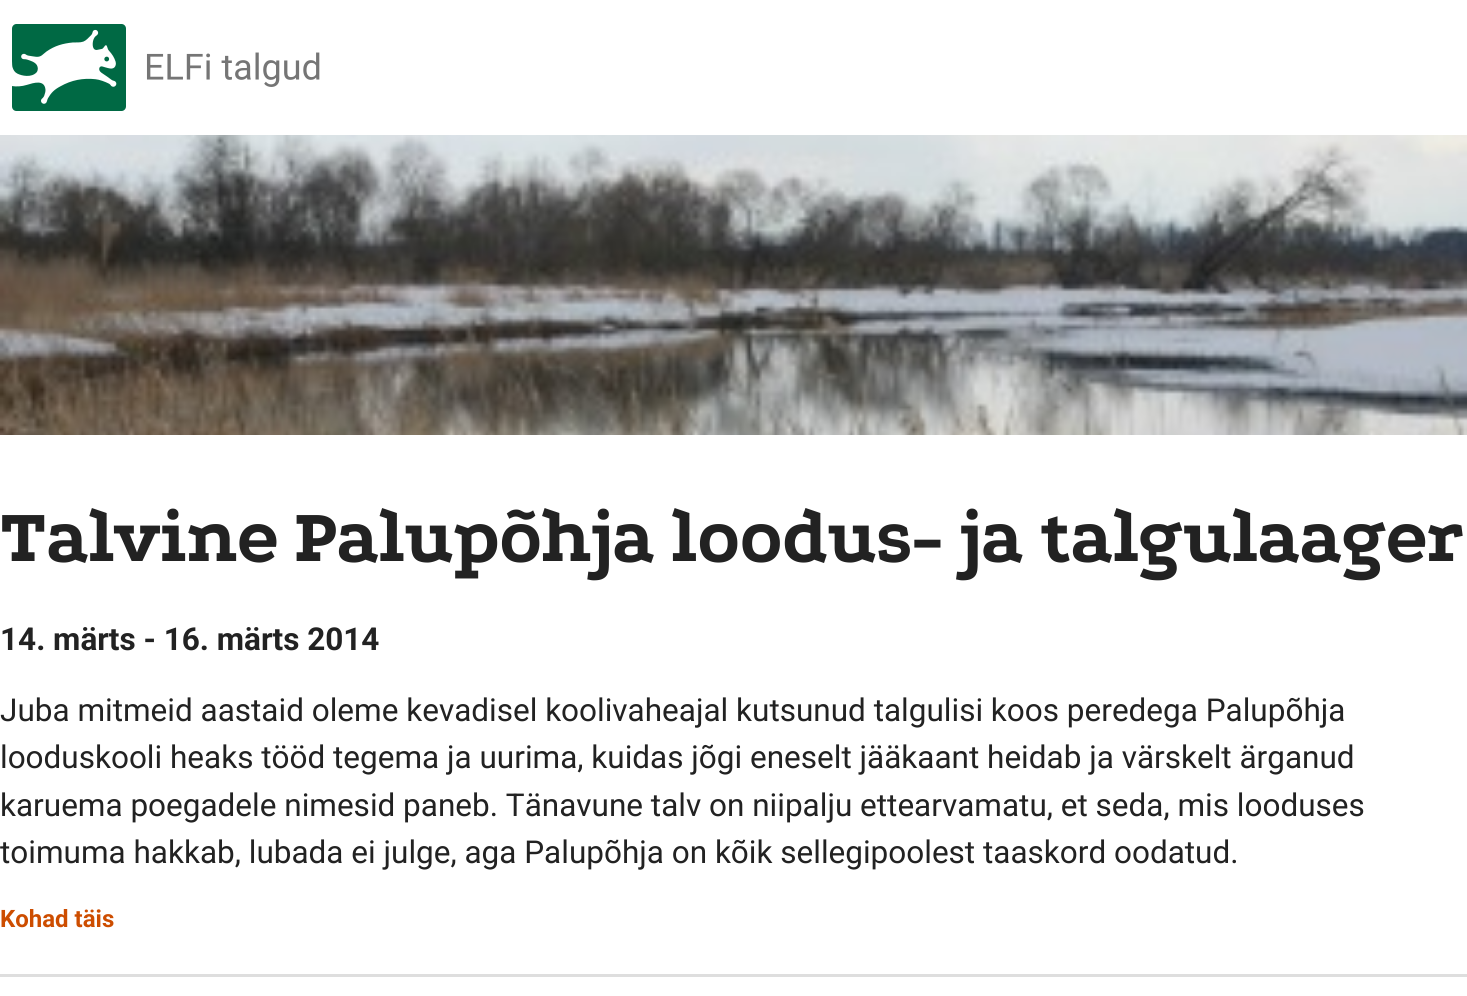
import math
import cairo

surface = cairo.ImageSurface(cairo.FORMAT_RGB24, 1467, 996)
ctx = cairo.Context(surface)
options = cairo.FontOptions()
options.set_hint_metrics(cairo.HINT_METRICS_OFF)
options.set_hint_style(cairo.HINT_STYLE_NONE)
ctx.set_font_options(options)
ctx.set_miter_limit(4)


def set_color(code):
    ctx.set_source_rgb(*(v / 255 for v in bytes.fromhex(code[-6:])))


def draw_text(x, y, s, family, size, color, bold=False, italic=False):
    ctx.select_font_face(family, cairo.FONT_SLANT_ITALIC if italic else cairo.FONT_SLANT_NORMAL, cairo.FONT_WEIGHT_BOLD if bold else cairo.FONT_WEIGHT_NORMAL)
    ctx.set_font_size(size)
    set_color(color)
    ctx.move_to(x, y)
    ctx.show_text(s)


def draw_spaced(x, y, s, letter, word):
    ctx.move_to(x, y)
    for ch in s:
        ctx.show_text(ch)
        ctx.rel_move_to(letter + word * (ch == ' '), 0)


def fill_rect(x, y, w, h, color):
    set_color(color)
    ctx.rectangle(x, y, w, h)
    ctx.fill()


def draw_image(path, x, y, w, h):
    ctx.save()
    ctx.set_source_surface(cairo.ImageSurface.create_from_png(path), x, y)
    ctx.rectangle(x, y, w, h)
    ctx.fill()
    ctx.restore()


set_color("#ffffff")
ctx.paint()
draw_image("assets/img1.png", 12, 24, 308, 87)
draw_image("assets/img2.png", 0, 135, 1467, 300)
fill_rect(0, 974, 1467, 3, "#dedede")
ctx.select_font_face("Podkova ExtraBold")
ctx.set_font_size(78)
set_color("#222222")
draw_spaced(0, 561, "Talvine Palupõhja loodus- ja talgulaager", -1.55, 0)
draw_text(0, 650, "14. märts - 16. märts 2014", "Roboto", 31.5, "#222222", bold=True)
draw_text(0, 721, "Juba mitmeid aastaid oleme kevadisel koolivaheajal kutsunud talgulisi koos peredega Palupõhja", "Roboto", 31.5, "#222222")
draw_text(0, 768, "looduskooli heaks tööd tegema ja uurima, kuidas jõgi eneselt jääkaant heidab ja värskelt ärganud", "Roboto", 31.5, "#222222")
draw_text(0, 816, "karuema poegadele nimesid paneb. Tänavune talv on niipalju ettearvamatu, et seda, mis looduses", "Roboto", 31.5, "#222222")
draw_text(0, 863, "toimuma hakkab, lubada ei julge, aga Palupõhja on kõik sellegipoolest taaskord oodatud.", "Roboto", 31.5, "#222222")
draw_text(0, 927, "Kohad täis", "Roboto", 24, "#cd4d00", bold=True)
surface.write_to_png("output.png")
